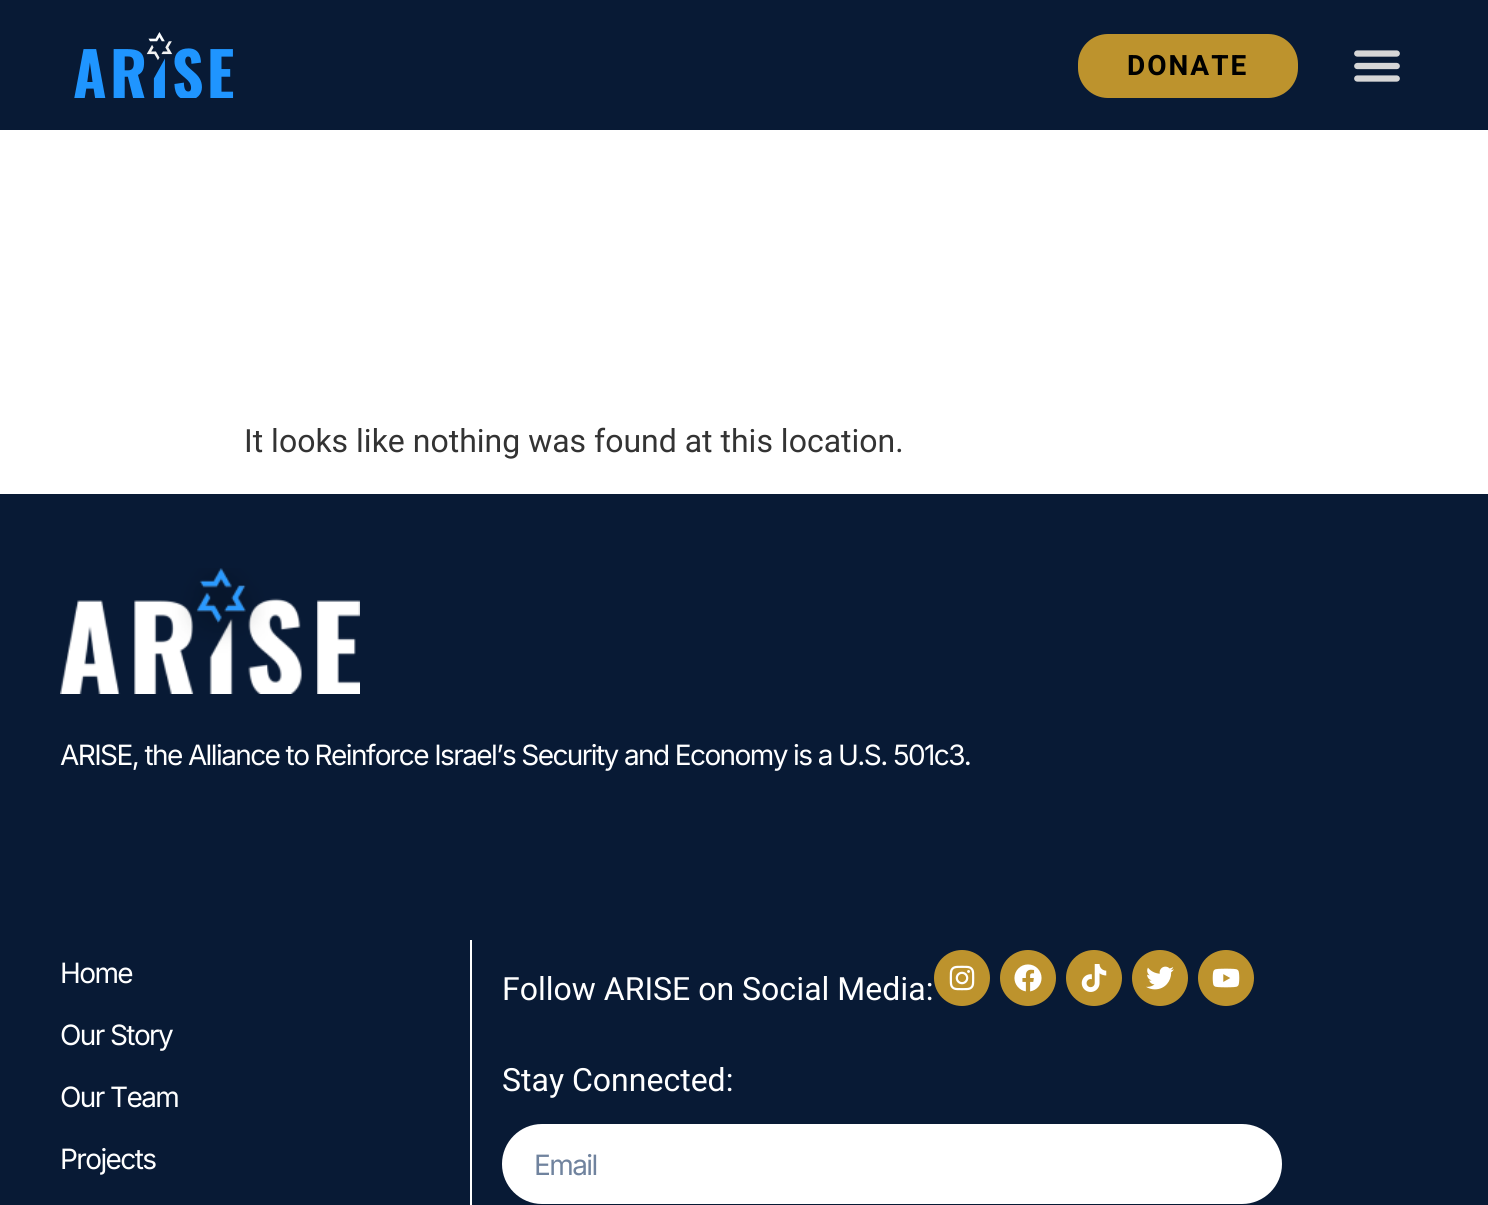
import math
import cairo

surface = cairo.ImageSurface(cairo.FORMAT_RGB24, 1488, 1205)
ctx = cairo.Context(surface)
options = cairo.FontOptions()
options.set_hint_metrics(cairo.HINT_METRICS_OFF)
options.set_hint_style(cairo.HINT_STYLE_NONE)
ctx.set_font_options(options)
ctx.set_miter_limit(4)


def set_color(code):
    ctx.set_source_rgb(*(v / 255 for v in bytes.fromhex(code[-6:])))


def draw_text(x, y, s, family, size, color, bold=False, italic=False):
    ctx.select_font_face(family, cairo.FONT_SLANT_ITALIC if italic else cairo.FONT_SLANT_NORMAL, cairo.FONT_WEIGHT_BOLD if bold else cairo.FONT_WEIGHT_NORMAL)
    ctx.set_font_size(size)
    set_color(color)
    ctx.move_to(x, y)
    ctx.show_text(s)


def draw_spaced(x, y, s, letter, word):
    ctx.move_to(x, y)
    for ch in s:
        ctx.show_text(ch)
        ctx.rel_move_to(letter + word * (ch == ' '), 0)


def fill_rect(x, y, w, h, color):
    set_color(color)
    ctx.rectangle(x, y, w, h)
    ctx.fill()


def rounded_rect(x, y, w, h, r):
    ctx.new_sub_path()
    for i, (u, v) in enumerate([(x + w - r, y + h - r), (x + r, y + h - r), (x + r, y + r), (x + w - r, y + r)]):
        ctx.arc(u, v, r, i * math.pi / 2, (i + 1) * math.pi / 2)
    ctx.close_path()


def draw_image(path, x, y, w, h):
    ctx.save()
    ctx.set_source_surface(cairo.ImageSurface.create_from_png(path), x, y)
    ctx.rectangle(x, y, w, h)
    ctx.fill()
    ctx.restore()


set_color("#ffffff")
ctx.paint()
fill_rect(0, 0, 1488, 130, "#081a35")
draw_image("assets/img1.png", 74, 32, 160, 66)
set_color("#bd932d")
rounded_rect(1078, 34, 220, 64, 30)
ctx.fill()
ctx.select_font_face("Heebo", cairo.FONT_SLANT_NORMAL, cairo.FONT_WEIGHT_BOLD)
ctx.set_font_size(28)
set_color("#000000")
draw_spaced(1127, 75, "DONATE", 2, 0)
draw_image("assets/img2.png", 1354, 50, 46, 32)
draw_text(244, 452, "It looks like nothing was found at this location.", "Roboto", 32, "#333333")
fill_rect(0, 494, 1488, 711, "#081a35")
draw_image("assets/img3.png", 60, 568, 300, 126)
ctx.select_font_face("Inter")
ctx.set_font_size(28)
set_color("#ffffff")
draw_spaced(60, 765, "ARISE, the Alliance to Reinforce Israel’s Security and Economy is a U.S. 501c3.", -1.6, 0)
draw_spaced(60, 983, "Home", -1.6, 0)
draw_spaced(60, 1045, "Our Story", -1.6, 0)
draw_spaced(60, 1107, "Our Team", -1.6, 0)
draw_spaced(60, 1169, "Projects", -1.6, 0)
fill_rect(470, 940, 2, 265, "#ffffff")
draw_text(502, 1000, "Follow ARISE on Social Media:", "Heebo", 32, "#ffffff")
set_color("#bd932d")
ctx.new_path()
ctx.arc(962, 978, 28, 0, 2 * math.pi)
ctx.fill()
draw_image("assets/img4.png", 949, 965, 26, 26)
ctx.arc(1028, 978, 28, 0, 2 * math.pi)
ctx.fill()
draw_image("assets/img5.png", 1014, 964, 28, 28)
ctx.arc(1094, 978, 28, 0, 2 * math.pi)
ctx.fill()
draw_image("assets/img6.png", 1081, 964, 26, 28)
ctx.arc(1160, 978, 28, 0, 2 * math.pi)
ctx.fill()
draw_image("assets/img7.png", 1146, 966, 28, 24)
ctx.arc(1226, 978, 28, 0, 2 * math.pi)
ctx.fill()
draw_image("assets/img8.png", 1212, 968, 28, 20)
draw_text(502, 1091, "Stay Connected:", "Heebo", 32, "#ffffff")
rounded_rect(502, 1124, 780, 80, 40)
ctx.fill()
ctx.select_font_face("Inter")
ctx.set_font_size(28)
set_color("#70839e")
draw_spaced(534, 1175, "Email", -1.6, 0)
surface.write_to_png("output.png")
